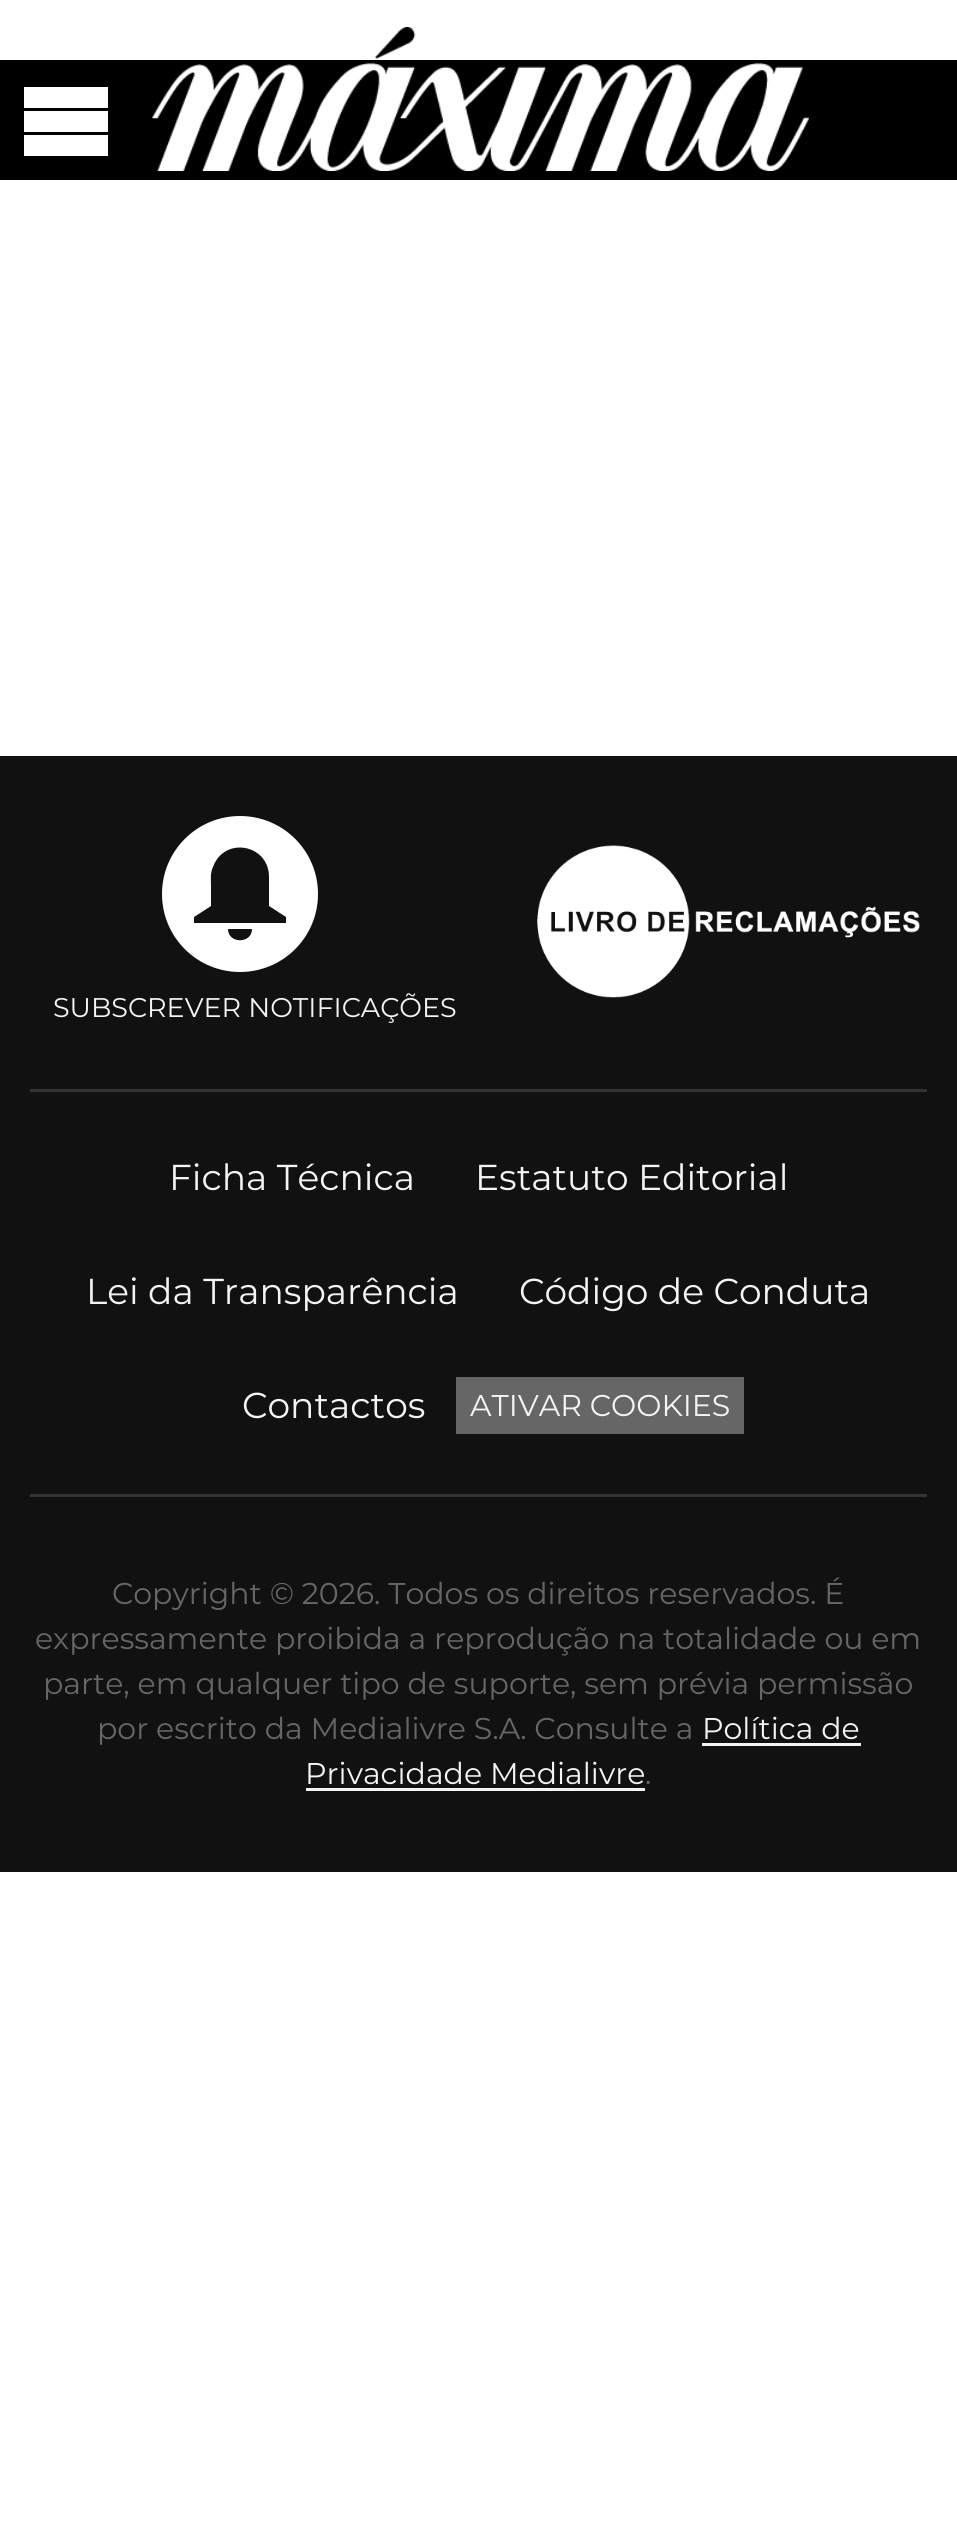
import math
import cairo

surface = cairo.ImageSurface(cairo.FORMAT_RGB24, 957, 2532)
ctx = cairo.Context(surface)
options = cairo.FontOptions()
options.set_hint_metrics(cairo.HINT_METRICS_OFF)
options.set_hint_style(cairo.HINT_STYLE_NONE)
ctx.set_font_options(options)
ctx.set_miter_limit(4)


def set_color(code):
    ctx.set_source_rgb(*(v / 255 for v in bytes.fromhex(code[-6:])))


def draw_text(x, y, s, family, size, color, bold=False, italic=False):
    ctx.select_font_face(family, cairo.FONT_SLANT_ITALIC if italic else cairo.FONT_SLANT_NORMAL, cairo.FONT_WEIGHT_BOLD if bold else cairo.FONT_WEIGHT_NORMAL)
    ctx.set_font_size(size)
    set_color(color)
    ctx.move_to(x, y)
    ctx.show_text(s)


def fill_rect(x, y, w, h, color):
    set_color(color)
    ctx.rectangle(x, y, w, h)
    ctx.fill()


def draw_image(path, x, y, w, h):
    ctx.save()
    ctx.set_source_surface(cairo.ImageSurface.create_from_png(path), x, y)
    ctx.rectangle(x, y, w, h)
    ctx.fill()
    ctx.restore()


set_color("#ffffff")
ctx.paint()
fill_rect(0, 60, 957, 120, "#000000")
fill_rect(24, 111, 84, 21, "#ffffff")
fill_rect(24, 87, 84, 21, "#ffffff")
fill_rect(24, 135, 84, 21, "#ffffff")
draw_image("assets/img1.png", 152, 27, 657, 144)
fill_rect(0, 756, 957, 1116, "#111111")
draw_image("assets/img2.png", 537, 845, 383, 153)
set_color("#ffffff")
ctx.arc(240, 894, 78, 0, 2 * math.pi)
ctx.fill()
set_color("#111111")
ctx.new_path()
ctx.move_to(269, 877)
ctx.curve_to(269, 844, 224, 836, 213, 867)
ctx.curve_to(210, 873, 211, 880, 211, 886)
ctx.line_to(211, 906)
ctx.line_to(194, 917)
ctx.line_to(194, 923)
ctx.line_to(286, 923)
ctx.line_to(286, 917)
ctx.line_to(269, 906)
ctx.close_path()
ctx.move_to(252, 929)
ctx.line_to(228, 929)
ctx.curve_to(228, 944, 252, 944, 252, 929)
ctx.close_path()
ctx.fill()
draw_text(53, 1017, "SUBSCREVER NOTIFICAÇÕES", "Montserrat", 27, "#f4f4f4")
fill_rect(30, 1089, 897, 3, "#333333")
fill_rect(30, 1494, 897, 3, "#333333")
draw_text(169, 1190, "Ficha Técnica", "Montserrat", 36, "#f4f4f4")
draw_text(475, 1190, "Estatuto Editorial", "Montserrat", 36, "#f4f4f4")
draw_text(86, 1304, "Lei da Transparência", "Montserrat", 36, "#f4f4f4")
draw_text(519, 1304, "Código de Conduta", "Montserrat", 36, "#f4f4f4")
draw_text(242, 1418, "Contactos", "Montserrat", 36, "#f4f4f4")
fill_rect(456, 1377, 288, 57, "#666666")
draw_text(470, 1416, "ATIVAR COOKIES", "Montserrat", 30, "#f4f4f4")
draw_text(112, 1604, "Copyright © 2026. Todos os direitos reservados. É", "Montserrat", 30, "#666666")
draw_text(35, 1649, "expressamente proibida a reprodução na totalidade ou em", "Montserrat", 30, "#666666")
draw_text(43, 1694, "parte, em qualquer tipo de suporte, sem prévia permissão", "Montserrat", 30, "#666666")
draw_text(97, 1739, "por escrito da Medialivre S.A. Consulte a", "Montserrat", 30, "#666666")
draw_text(702, 1739, "Política de", "Montserrat", 30, "#f4f4f4")
fill_rect(702, 1743, 159, 3, "#f4f4f4")
draw_text(305, 1784, "Privacidade Medialivre", "Montserrat", 30, "#f4f4f4")
fill_rect(306, 1788, 339, 3, "#f4f4f4")
draw_text(645, 1784, ".", "Montserrat", 30, "#666666")
surface.write_to_png("output.png")
